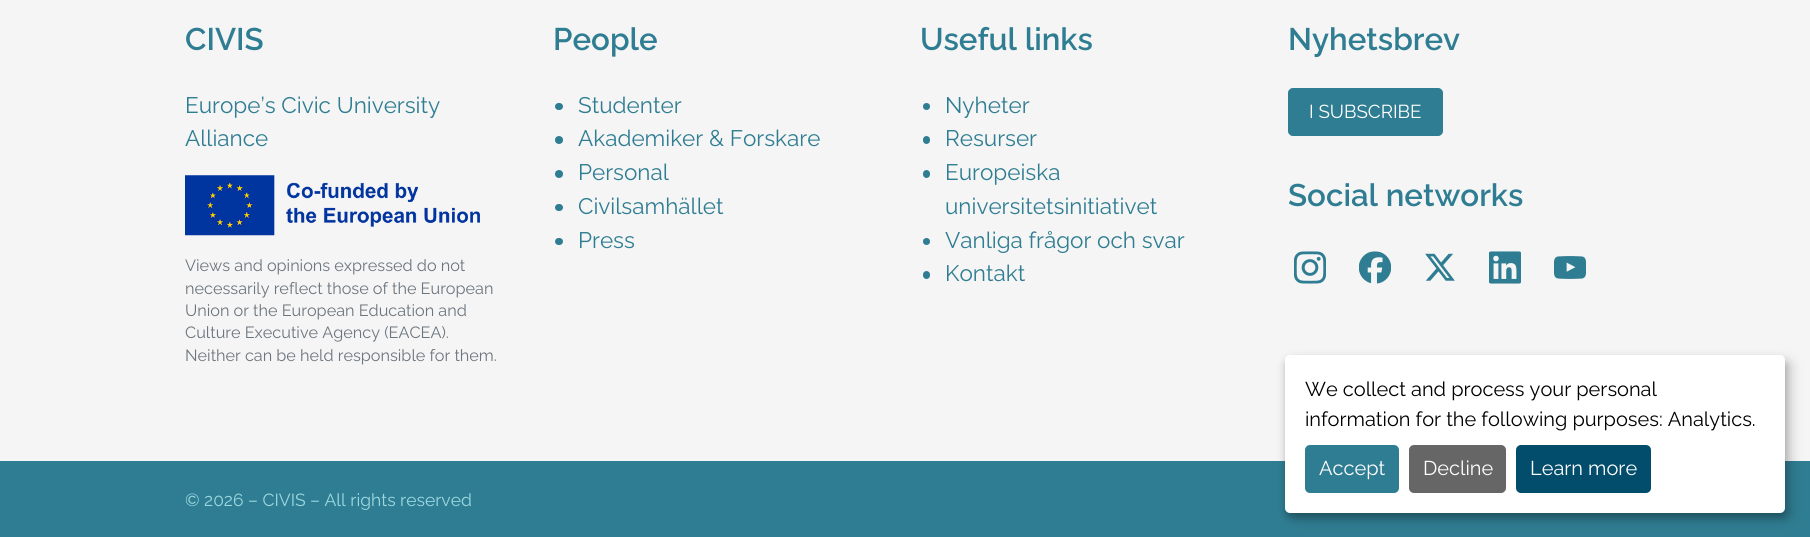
import math
import cairo

surface = cairo.ImageSurface(cairo.FORMAT_RGB24, 1810, 537)
ctx = cairo.Context(surface)
options = cairo.FontOptions()
options.set_hint_metrics(cairo.HINT_METRICS_OFF)
options.set_hint_style(cairo.HINT_STYLE_NONE)
ctx.set_font_options(options)
ctx.set_miter_limit(4)


def set_color(code):
    ctx.set_source_rgb(*(v / 255 for v in bytes.fromhex(code[-6:])))


def draw_text(x, y, s, family, size, color, bold=False, italic=False):
    ctx.select_font_face(family, cairo.FONT_SLANT_ITALIC if italic else cairo.FONT_SLANT_NORMAL, cairo.FONT_WEIGHT_BOLD if bold else cairo.FONT_WEIGHT_NORMAL)
    ctx.set_font_size(size)
    set_color(color)
    ctx.move_to(x, y)
    ctx.show_text(s)


def fill_rect(x, y, w, h, color):
    set_color(color)
    ctx.rectangle(x, y, w, h)
    ctx.fill()


def rounded_rect(x, y, w, h, r):
    ctx.new_sub_path()
    for i, (u, v) in enumerate([(x + w - r, y + h - r), (x + r, y + h - r), (x + r, y + r), (x + w - r, y + r)]):
        ctx.arc(u, v, r, i * math.pi / 2, (i + 1) * math.pi / 2)
    ctx.close_path()


def draw_shadow(x, y, w, h, r, blur, alpha):
    ctx.push_group_with_content(cairo.CONTENT_ALPHA)
    ctx.set_operator(cairo.OPERATOR_SOURCE)
    for i in range(15, -16, -2):
        e = blur * i / 6
        if min(w, h) + 2 * e > 0:
            ctx.set_source_rgba(0, 0, 0, alpha * math.erfc((i - 1) / 8.5) / 2)
            rounded_rect(x - e, y - e, w + 2 * e, h + 2 * e, max(0, min(r + e + blur * .6, min(w, h) / 2 + e)))
            ctx.fill()
    ctx.mask(ctx.pop_group())


def draw_image(path, x, y, w, h):
    ctx.save()
    ctx.set_source_surface(cairo.ImageSurface.create_from_png(path), x, y)
    ctx.rectangle(x, y, w, h)
    ctx.fill()
    ctx.restore()


set_color("#f5f5f5")
ctx.paint()
draw_text(185, 50, "CIVIS", "Raleway Thin", 31.25, "#2f7d92")
draw_text(185, 113, "Europe’s Civic University", "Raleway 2 Thin", 22.5, "#2f7d92")
draw_text(185, 146, "Alliance", "Raleway 2 Thin", 22.5, "#2f7d92")
draw_image("assets/img1.png", 185, 175, 295, 61)
draw_text(185, 271, "Views and opinions expressed do not", "Raleway 2 Thin", 16.25, "#6c757d")
draw_text(185, 294, "necessarily reflect those of the European", "Raleway 2 Thin", 16.25, "#6c757d")
draw_text(185, 316, "Union or the European Education and", "Raleway 2 Thin", 16.25, "#6c757d")
draw_text(185, 338, "Culture Executive Agency (EACEA).", "Raleway 2 Thin", 16.25, "#6c757d")
draw_text(185, 361, "Neither can be held responsible for them.", "Raleway 2 Thin", 16.25, "#6c757d")
draw_text(553, 50, "People", "Raleway Thin", 31.25, "#2f7d92")
rounded_rect(555, 103, 8, 7, 3.5)
ctx.fill()
draw_text(578, 113, "Studenter", "Raleway 2 Thin", 22.5, "#2f7d92")
ctx.new_path()
ctx.arc(559, 140, 4, 0, 2 * math.pi)
ctx.fill()
draw_text(578, 146, "Akademiker & Forskare", "Raleway 2 Thin", 22.5, "#2f7d92")
ctx.new_path()
ctx.arc(559, 174, 4, 0, 2 * math.pi)
ctx.fill()
draw_text(578, 180, "Personal", "Raleway 2 Thin", 22.5, "#2f7d92")
rounded_rect(555, 204, 8, 7, 3.5)
ctx.fill()
draw_text(578, 214, "Civilsamhället", "Raleway 2 Thin", 22.5, "#2f7d92")
rounded_rect(555, 238, 8, 7, 3.5)
ctx.fill()
draw_text(578, 248, "Press", "Raleway 2 Thin", 22.5, "#2f7d92")
draw_text(920, 50, "Useful links", "Raleway Thin", 31.25, "#2f7d92")
ctx.new_path()
ctx.arc(926.5, 106.5, 3.5, 0, 2 * math.pi)
ctx.fill()
draw_text(945, 113, "Nyheter", "Raleway 2 Thin", 22.5, "#2f7d92")
rounded_rect(923, 136, 7, 8, 3.5)
ctx.fill()
draw_text(945, 146, "Resurser", "Raleway 2 Thin", 22.5, "#2f7d92")
rounded_rect(923, 170, 7, 8, 3.5)
ctx.fill()
draw_text(945, 180, "Europeiska", "Raleway 2 Thin", 22.5, "#2f7d92")
draw_text(945, 214, "universitetsinitiativet", "Raleway 2 Thin", 22.5, "#2f7d92")
ctx.new_path()
ctx.arc(926.5, 241.5, 3.5, 0, 2 * math.pi)
ctx.fill()
draw_text(945, 248, "Vanliga frågor och svar", "Raleway 2 Thin", 22.5, "#2f7d92")
rounded_rect(923, 271, 7, 8, 3.5)
ctx.fill()
draw_text(945, 281, "Kontakt", "Raleway 2 Thin", 22.5, "#2f7d92")
draw_text(1288, 50, "Nyhetsbrev", "Raleway Thin", 31.25, "#2f7d92")
rounded_rect(1288.5, 88.5, 154, 47, 4.5)
ctx.fill_preserve()
ctx.set_line_width(1)
ctx.stroke()
draw_text(1309, 118, "I SUBSCRIBE", "Raleway 2 Thin", 18.75, "#ffffff")
draw_text(1288, 206, "Social networks", "Raleway Thin", 31.25, "#2f7d92")
draw_image("assets/img2.png", 1294, 251, 32, 33)
draw_image("assets/img3.png", 1359, 251, 32, 33)
draw_image("assets/img4.png", 1425, 253, 30, 28)
draw_image("assets/img5.png", 1489, 251, 32, 33)
draw_image("assets/img6.png", 1554, 256, 32, 23)
fill_rect(0, 461, 1810, 76, "#2f7d92")
draw_text(185, 506, "© 2026 – CIVIS – All rights reserved", "Raleway 2 Thin", 17.5, "#9dd8e0")
set_color("#000000")
draw_shadow(1291, 361, 500, 158, 5, 6, 0.19)
draw_shadow(1285, 360, 500, 158, 5, 4, 0.2)
set_color("#ffffff")
rounded_rect(1285, 355, 500, 158, 5)
ctx.fill()
draw_text(1305, 396, "We collect and process your personal", "Raleway 2 Thin", 20, "#000000")
draw_text(1305, 426, "information for the following purposes: Analytics.", "Raleway 2 Thin", 20, "#000000")
set_color("#2f7d92")
rounded_rect(1305, 445, 94, 48, 5)
ctx.fill()
draw_text(1319, 475, "Accept", "Raleway 2 Thin", 20, "#ffffff")
set_color("#666666")
rounded_rect(1409, 445, 97, 48, 5)
ctx.fill()
draw_text(1423, 475, "Decline", "Raleway 2 Thin", 20, "#ffffff")
set_color("#034d6c")
rounded_rect(1516, 445, 135, 48, 5)
ctx.fill()
draw_text(1530, 475, "Learn more", "Raleway 2 Thin", 20, "#ffffff")
surface.write_to_png("output.png")
